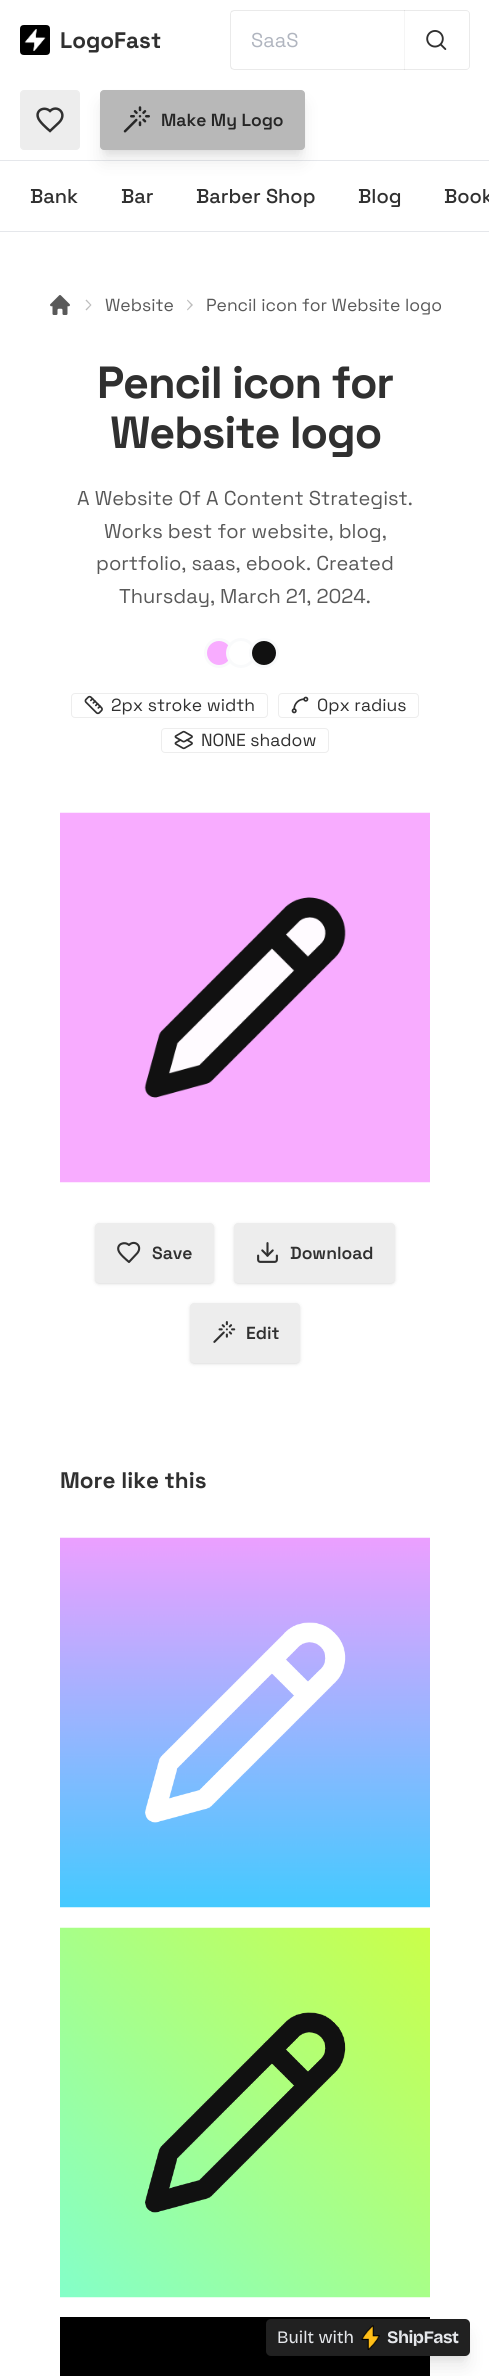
import math
import cairo

surface = cairo.ImageSurface(cairo.FORMAT_RGB24, 489, 2376)
ctx = cairo.Context(surface)
options = cairo.FontOptions()
options.set_hint_metrics(cairo.HINT_METRICS_OFF)
options.set_hint_style(cairo.HINT_STYLE_NONE)
ctx.set_font_options(options)
ctx.set_miter_limit(4)


def set_color(code):
    ctx.set_source_rgb(*(v / 255 for v in bytes.fromhex(code[-6:])))


def draw_text(x, y, s, family, size, color, bold=False, italic=False):
    ctx.select_font_face(family, cairo.FONT_SLANT_ITALIC if italic else cairo.FONT_SLANT_NORMAL, cairo.FONT_WEIGHT_BOLD if bold else cairo.FONT_WEIGHT_NORMAL)
    ctx.set_font_size(size)
    set_color(color)
    ctx.move_to(x, y)
    ctx.show_text(s)


def draw_spaced(x, y, s, letter, word):
    ctx.move_to(x, y)
    for ch in s:
        ctx.show_text(ch)
        ctx.rel_move_to(letter + word * (ch == ' '), 0)


def fill_rect(x, y, w, h, color):
    set_color(color)
    ctx.rectangle(x, y, w, h)
    ctx.fill()


def rounded_rect(x, y, w, h, r):
    ctx.new_sub_path()
    for i, (u, v) in enumerate([(x + w - r, y + h - r), (x + r, y + h - r), (x + r, y + r), (x + w - r, y + r)]):
        ctx.arc(u, v, r, i * math.pi / 2, (i + 1) * math.pi / 2)
    ctx.close_path()


def draw_shadow(x, y, w, h, r, blur, alpha):
    ctx.push_group_with_content(cairo.CONTENT_ALPHA)
    ctx.set_operator(cairo.OPERATOR_SOURCE)
    for i in range(15, -16, -2):
        e = blur * i / 6
        if min(w, h) + 2 * e > 0:
            ctx.set_source_rgba(0, 0, 0, alpha * math.erfc((i - 1) / 8.5) / 2)
            rounded_rect(x - e, y - e, w + 2 * e, h + 2 * e, max(0, min(r + e + blur * .6, min(w, h) / 2 + e)))
            ctx.fill()
    ctx.mask(ctx.pop_group())


def draw_image(path, x, y, w, h):
    ctx.save()
    ctx.set_source_surface(cairo.ImageSurface.create_from_png(path), x, y)
    ctx.rectangle(x, y, w, h)
    ctx.fill()
    ctx.restore()


set_color("#ffffff")
ctx.paint()
fill_rect(0, 160, 489, 1, "#e5e7eb")
draw_image("assets/img1.png", 20, 25, 30, 30)
draw_text(60, 48, "LogoFast", "Space Grotesk", 22.5, "#303030", bold=True)
set_color("#eaeaea")
ctx.new_path()
ctx.move_to(234, 10)
ctx.line_to(231, 11)
ctx.line_to(232, 12)
ctx.line_to(234, 11)
ctx.line_to(404, 11)
ctx.line_to(405, 10)
ctx.close_path()
ctx.fill()
ctx.set_source_rgba(0.188, 0.188, 0.188, 0.05)
ctx.new_path()
ctx.move_to(405, 10)
ctx.line_to(404, 11)
ctx.line_to(404, 69)
ctx.line_to(405, 70)
ctx.close_path()
ctx.fill()
ctx.set_source_rgba(0.188, 0.188, 0.188, 0.1)
ctx.new_path()
ctx.move_to(405, 70)
ctx.line_to(404, 69)
ctx.line_to(234, 69)
ctx.line_to(232, 68)
ctx.line_to(231, 69)
ctx.line_to(234, 70)
ctx.close_path()
ctx.fill()
ctx.new_path()
ctx.move_to(230, 14)
ctx.line_to(230, 66)
ctx.line_to(231, 69)
ctx.line_to(232, 68)
ctx.line_to(231, 66)
ctx.line_to(231, 13)
ctx.line_to(232, 12)
ctx.line_to(231, 11)
ctx.close_path()
ctx.fill()
draw_text(251, 47, "SaaS", "Space Grotesk", 20, "#b0b5bf")
ctx.set_source_rgba(0.188, 0.188, 0.188, 0.1)
ctx.set_fill_rule(cairo.FILL_RULE_EVEN_ODD)
ctx.new_path()
ctx.move_to(404, 10)
ctx.line_to(466, 10)
ctx.curve_to(468, 10, 470, 12, 470, 14)
ctx.line_to(470, 66)
ctx.curve_to(470, 68, 468, 70, 466, 70)
ctx.line_to(404, 70)
ctx.close_path()
ctx.move_to(404, 11)
ctx.line_to(466, 11)
ctx.curve_to(468, 11, 469, 12, 469, 14)
ctx.line_to(469, 66)
ctx.curve_to(469, 68, 468, 69, 466, 69)
ctx.line_to(404, 69)
ctx.close_path()
ctx.fill()
draw_image("assets/img2.png", 426, 30, 21, 20)
set_color("#000000")
draw_shadow(104, 106, 197, 53, 0, 9.5, 0.1)
set_color("#ededed")
rounded_rect(20.5, 90.5, 59, 59, 3.5)
ctx.fill_preserve()
ctx.set_line_width(1)
ctx.stroke()
ctx.new_path()
ctx.move_to(59, 122.5)
ctx.curve_to(68, 113.5, 57, 104, 50, 111)
ctx.curve_to(44.5, 106, 35.5, 110, 38, 117.5)
ctx.curve_to(39, 121.5, 47, 128.5, 50, 131)
ctx.close_path()
set_color("#303030")
ctx.set_line_width(2.5)
ctx.stroke()
set_color("#000000")
draw_shadow(105, 100, 195, 50, 0, 4, 0.1)
set_color("#b8b8b8")
rounded_rect(100.5, 90.5, 204, 59, 3.5)
ctx.fill_preserve()
ctx.set_line_width(1)
ctx.stroke()
draw_image("assets/img3.png", 123, 106, 27, 27)
draw_text(161, 126, "Make My Logo", "Space Grotesk SemiBold", 17.5, "#262626")
fill_rect(0, 231, 489, 1, "#e5e7eb")
draw_text(30, 203, "Bank", "Space Grotesk Medium", 20, "#303030")
draw_text(121, 203, "Bar", "Space Grotesk Medium", 20, "#303030")
draw_text(196, 203, "Barber Shop", "Space Grotesk Medium", 20, "#303030")
draw_text(358, 203, "Blog", "Space Grotesk Medium", 20, "#303030")
draw_text(444, 203, "Book", "Space Grotesk Medium", 20, "#303030")
draw_image("assets/img4.png", 50, 295, 20, 20)
set_color("#bdbdbd")
ctx.set_fill_rule(cairo.FILL_RULE_WINDING)
ctx.new_path()
ctx.move_to(86.5, 299.5)
ctx.line_to(91.5, 305)
ctx.line_to(90, 305)
ctx.line_to(85.5, 300.5)
ctx.close_path()
ctx.move_to(91.5, 305)
ctx.line_to(86.5, 310.5)
ctx.line_to(85.5, 309.5)
ctx.line_to(90, 305)
ctx.close_path()
ctx.fill()
draw_text(105, 311, "Website", "Space Grotesk", 17.5, "#595959")
set_color("#bdbdbd")
ctx.new_path()
ctx.move_to(187.5, 299.5)
ctx.line_to(193, 305)
ctx.line_to(191, 305)
ctx.line_to(187, 300.5)
ctx.close_path()
ctx.move_to(193, 305)
ctx.line_to(187.5, 310.5)
ctx.line_to(187, 309.5)
ctx.line_to(191, 305)
ctx.close_path()
ctx.fill()
draw_text(206, 311, "Pencil icon for Website logo", "Space Grotesk", 17.5, "#595959")
ctx.select_font_face("Space Grotesk", cairo.FONT_SLANT_NORMAL, cairo.FONT_WEIGHT_BOLD)
ctx.set_font_size(45)
set_color("#303030")
draw_spaced(97, 398, "Pencil icon for", -1.1, 0)
draw_spaced(110, 448, "Website logo", -1.1, 0)
draw_text(77, 505, "A Website Of A Content Strategist.", "Space Grotesk", 20, "#595959")
draw_text(104, 538, "Works best for website, blog,", "Space Grotesk", 20, "#595959")
draw_text(96, 570, "portfolio, saas, ebook. Created", "Space Grotesk", 20, "#595959")
draw_text(119, 603, "Thursday, March 21, 2024.", "Space Grotesk", 20, "#595959")
set_color("#f8acff")
ctx.new_path()
ctx.arc(219, 653, 13.5, 0, 2 * math.pi)
ctx.fill_preserve()
set_color("#f9fafb")
ctx.set_line_width(3)
ctx.stroke()
set_color("#ffffff")
ctx.arc(241, 653, 13.5, 0, 2 * math.pi)
ctx.fill_preserve()
set_color("#f9fafb")
ctx.stroke()
set_color("#111111")
ctx.arc(264, 653, 13.5, 0, 2 * math.pi)
ctx.fill_preserve()
set_color("#f9fafb")
ctx.stroke()
rounded_rect(71.5, 693.5, 196, 24, 3.5)
set_color("#ededed")
ctx.set_line_width(1)
ctx.stroke()
draw_image("assets/img5.png", 84, 695, 19, 20)
draw_text(111, 711, "2px stroke width", "Space Grotesk", 17.5, "#303030")
rounded_rect(278.5, 693.5, 140, 24, 3.5)
set_color("#ededed")
ctx.stroke()
draw_image("assets/img6.png", 291, 696, 18, 18)
draw_text(317, 711, "0px radius", "Space Grotesk", 17.5, "#303030")
rounded_rect(161.5, 728.5, 167, 24, 3.5)
set_color("#ededed")
ctx.stroke()
draw_image("assets/img7.png", 174, 730, 19, 20)
draw_text(201, 746, "NONE shadow", "Space Grotesk", 17.5, "#303030")
draw_image("assets/img8.png", 60, 812, 370, 371)
set_color("#000000")
draw_shadow(96, 1225, 117, 58, 2.5, 1, 0.1)
draw_shadow(95, 1224, 119, 60, 4, 2, 0.1)
set_color("#ededed")
rounded_rect(95, 1223, 119, 60, 4)
ctx.fill()
ctx.new_path()
ctx.move_to(136, 1254.5)
ctx.curve_to(144, 1247, 135, 1239, 129, 1245)
ctx.curve_to(124.5, 1241, 116.5, 1244, 118.5, 1250.5)
ctx.curve_to(119.5, 1254, 126, 1259.5, 129, 1262)
ctx.close_path()
set_color("#303030")
ctx.set_line_width(2.1)
ctx.set_line_cap(cairo.LINE_CAP_ROUND)
ctx.set_line_join(cairo.LINE_JOIN_ROUND)
ctx.stroke()
draw_text(152, 1259, "Save", "Space Grotesk SemiBold", 17.5, "#303030")
set_color("#000000")
draw_shadow(235, 1225, 159, 58, 2.5, 1, 0.1)
draw_shadow(234, 1224, 161, 60, 4, 2, 0.1)
set_color("#ededed")
rounded_rect(234, 1223, 161, 60, 4)
ctx.fill()
draw_image("assets/img9.png", 257, 1242, 21, 21)
draw_text(290, 1259, "Download", "Space Grotesk SemiBold", 17.5, "#303030")
set_color("#000000")
draw_shadow(191, 1305, 108, 58, 2.5, 1, 0.1)
draw_shadow(190, 1304, 110, 60, 4, 2, 0.1)
set_color("#ededed")
rounded_rect(190, 1303, 110, 60, 4)
ctx.fill()
draw_image("assets/img10.png", 213, 1321, 23, 22)
draw_text(246, 1339, "Edit", "Space Grotesk SemiBold", 17.5, "#303030")
draw_text(60, 1488, "More like this", "Space Grotesk", 22.5, "#303030", bold=True)
draw_image("assets/img11.png", 60, 1537, 370, 371)
draw_image("assets/img12.png", 60, 1927, 370, 371)
fill_rect(60, 2317, 370, 59, "#000000")
set_color("#000000")
draw_shadow(271, 2329, 194, 27, 0, 4, 0.1)
draw_shadow(270, 2335, 196, 30, 1, 9.5, 0.1)
set_color("#212121")
rounded_rect(266, 2319, 204, 37, 5)
ctx.fill()
rounded_rect(266.5, 2319.5, 203, 36, 4.5)
ctx.set_source_rgba(0.129, 0.129, 0.129, 0.12)
ctx.set_line_width(1)
ctx.set_line_cap(cairo.LINE_CAP_BUTT)
ctx.set_line_join(cairo.LINE_JOIN_MITER)
ctx.stroke()
draw_text(277, 2343, "Built with", "Bricolage Grotesque", 17.5, "#e5e7eb")
draw_image("assets/img13.png", 361, 2325, 19, 25)
ctx.select_font_face("Bricolage Grotesque", cairo.FONT_SLANT_NORMAL, cairo.FONT_WEIGHT_BOLD)
draw_spaced(387, 2343, "ShipFast", -0.5, 0)
surface.write_to_png("output.png")
